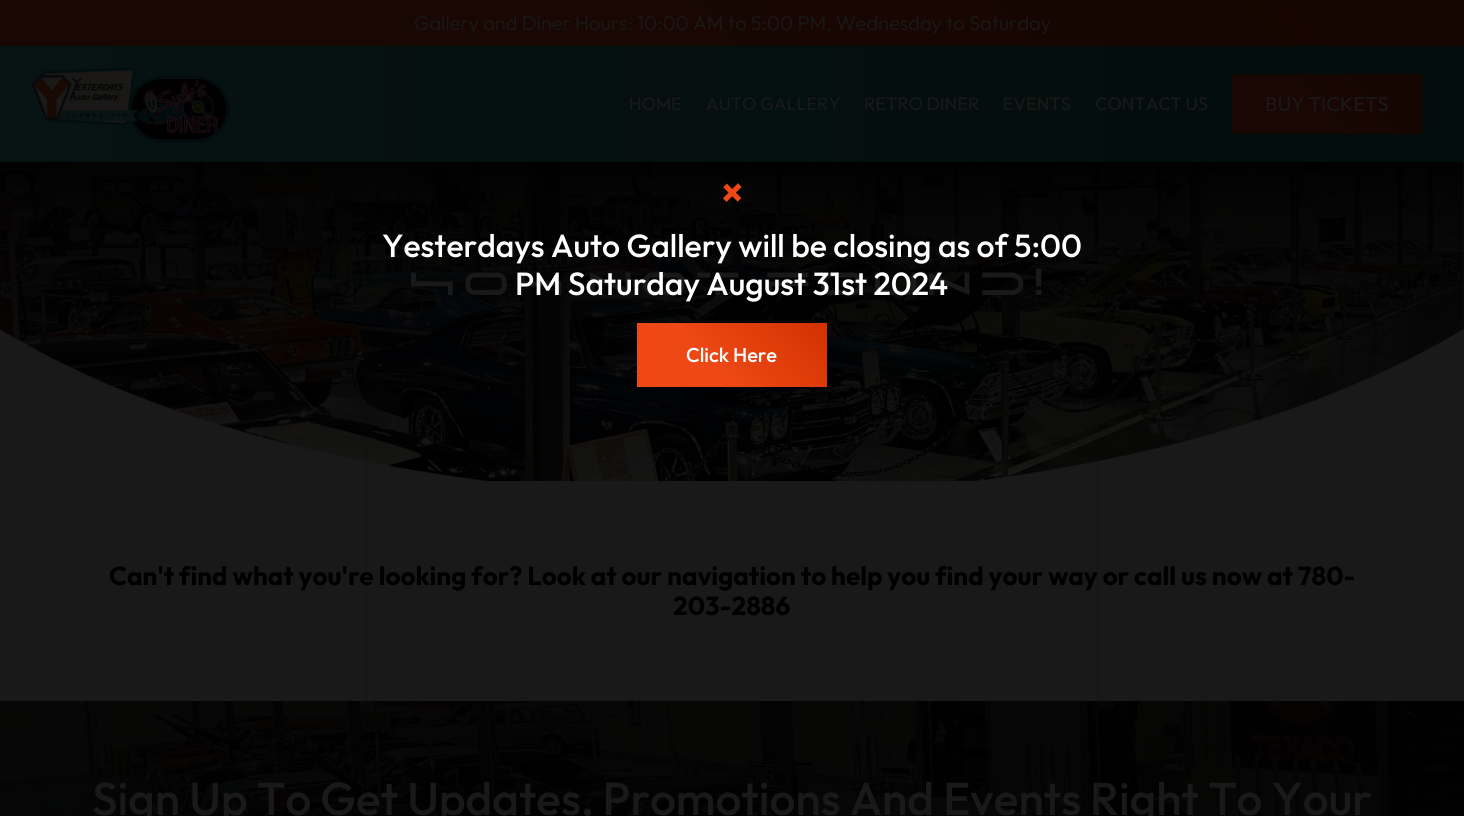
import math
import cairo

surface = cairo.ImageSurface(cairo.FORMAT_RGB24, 1464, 816)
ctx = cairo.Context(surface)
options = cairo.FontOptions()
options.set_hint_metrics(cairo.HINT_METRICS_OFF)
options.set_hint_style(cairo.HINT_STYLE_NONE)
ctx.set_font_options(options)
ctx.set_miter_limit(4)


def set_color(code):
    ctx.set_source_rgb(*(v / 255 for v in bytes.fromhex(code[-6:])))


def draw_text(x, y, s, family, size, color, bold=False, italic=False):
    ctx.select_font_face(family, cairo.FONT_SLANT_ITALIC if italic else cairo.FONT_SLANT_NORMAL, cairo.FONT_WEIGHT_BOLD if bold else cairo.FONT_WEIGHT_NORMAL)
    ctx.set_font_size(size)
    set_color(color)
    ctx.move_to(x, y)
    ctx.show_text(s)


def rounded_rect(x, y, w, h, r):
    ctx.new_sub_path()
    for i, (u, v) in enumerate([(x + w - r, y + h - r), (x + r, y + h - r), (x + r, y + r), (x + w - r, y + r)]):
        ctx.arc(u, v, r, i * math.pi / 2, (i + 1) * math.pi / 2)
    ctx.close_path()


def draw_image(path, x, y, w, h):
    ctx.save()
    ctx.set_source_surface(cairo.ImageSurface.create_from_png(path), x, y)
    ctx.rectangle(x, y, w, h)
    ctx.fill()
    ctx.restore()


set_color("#191919")
ctx.paint()
gradient = cairo.LinearGradient(0, 81, 1464, 81)
gradient.add_color_stop_rgba(0, 0.027, 0.071, 0.075, 1)
gradient.add_color_stop_rgba(1, 0.008, 0.047, 0.043, 1)
ctx.set_source(gradient)
ctx.rectangle(0, 46, 1464, 116)
ctx.fill()
gradient = cairo.LinearGradient(316, 397, 1148, -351)
gradient.add_color_stop_rgba(0.4, 0.094, 0.027, 0.008, 1)
gradient.add_color_stop_rgba(1, 0.082, 0.02, 0, 1)
ctx.set_source(gradient)
ctx.rectangle(0, 0, 1464, 46)
ctx.fill()
draw_text(414, 30, "Gallery and Diner Hours: 10:00 AM to 5:00 PM, Wednesday to Saturday", "Outfit Light", 20, "#191919")
draw_image("assets/img1.png", 31, 67, 199, 76)
draw_text(629, 110, "HOME", "Outfit", 18, "#191919")
draw_text(706, 110, "AUTO GALLERY", "Outfit", 18, "#191919")
draw_text(864, 110, "RETRO DINER", "Outfit", 18, "#191919")
draw_text(1003, 110, "EVENTS", "Outfit", 18, "#191919")
draw_text(1095, 110, "CONTACT US", "Outfit", 18, "#191919")
gradient = cairo.LinearGradient(1260, 165, 1394, 43)
gradient.add_color_stop_rgba(0.4, 0.094, 0.027, 0.008, 1)
gradient.add_color_stop_rgba(1, 0.082, 0.02, 0, 1)
ctx.set_source(gradient)
ctx.rectangle(1232, 74, 190, 60)
ctx.fill()
draw_text(1265, 111, "BUY TICKETS", "Outfit", 20, "#191919")
draw_image("assets/img2.png", 0, 162, 1464, 319)
draw_text(109, 585, "Can't find what you're looking for? Look at our navigation to help you find your way or call us now at 780-", "Outfit", 26, "#000000", bold=True)
draw_image("assets/img3.png", 0, 701, 1464, 115)
draw_text(92, 815, "Sign Up To Get Updates, Promotions And Events Right To Your", "Outfit Medium", 46, "#191919")
rounded_rect(366.5, 175.5, 731, 640, 7.5)
ctx.set_source_rgba(0, 0, 0, 0.18)
ctx.set_line_width(1)
ctx.stroke()
draw_text(721, 206, "×", "Outfit", 40, "#ed4815", bold=True)
draw_text(382, 257, "Yesterdays Auto Gallery will be closing as of 5:00", "Outfit Medium", 32, "#ffffff")
draw_text(411, 295, "404 Not Found!", "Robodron", 32, "#191919", bold=True)
draw_text(515, 295, "PM Saturday August 31st 2024", "Outfit Medium", 32, "#ffffff")
gradient = cairo.LinearGradient(664, 417, 800, 293)
gradient.add_color_stop_rgba(0.4, 0.929, 0.282, 0.082, 1)
gradient.add_color_stop_rgba(1, 0.824, 0.196, 0, 1)
ctx.set_source(gradient)
ctx.rectangle(637, 323, 190, 64)
ctx.fill()
draw_text(686, 362, "Click Here", "Outfit Medium", 20, "#ffffff")
draw_text(673, 615, "203-2886", "Outfit", 26, "#000000", bold=True)
surface.write_to_png("output.png")
